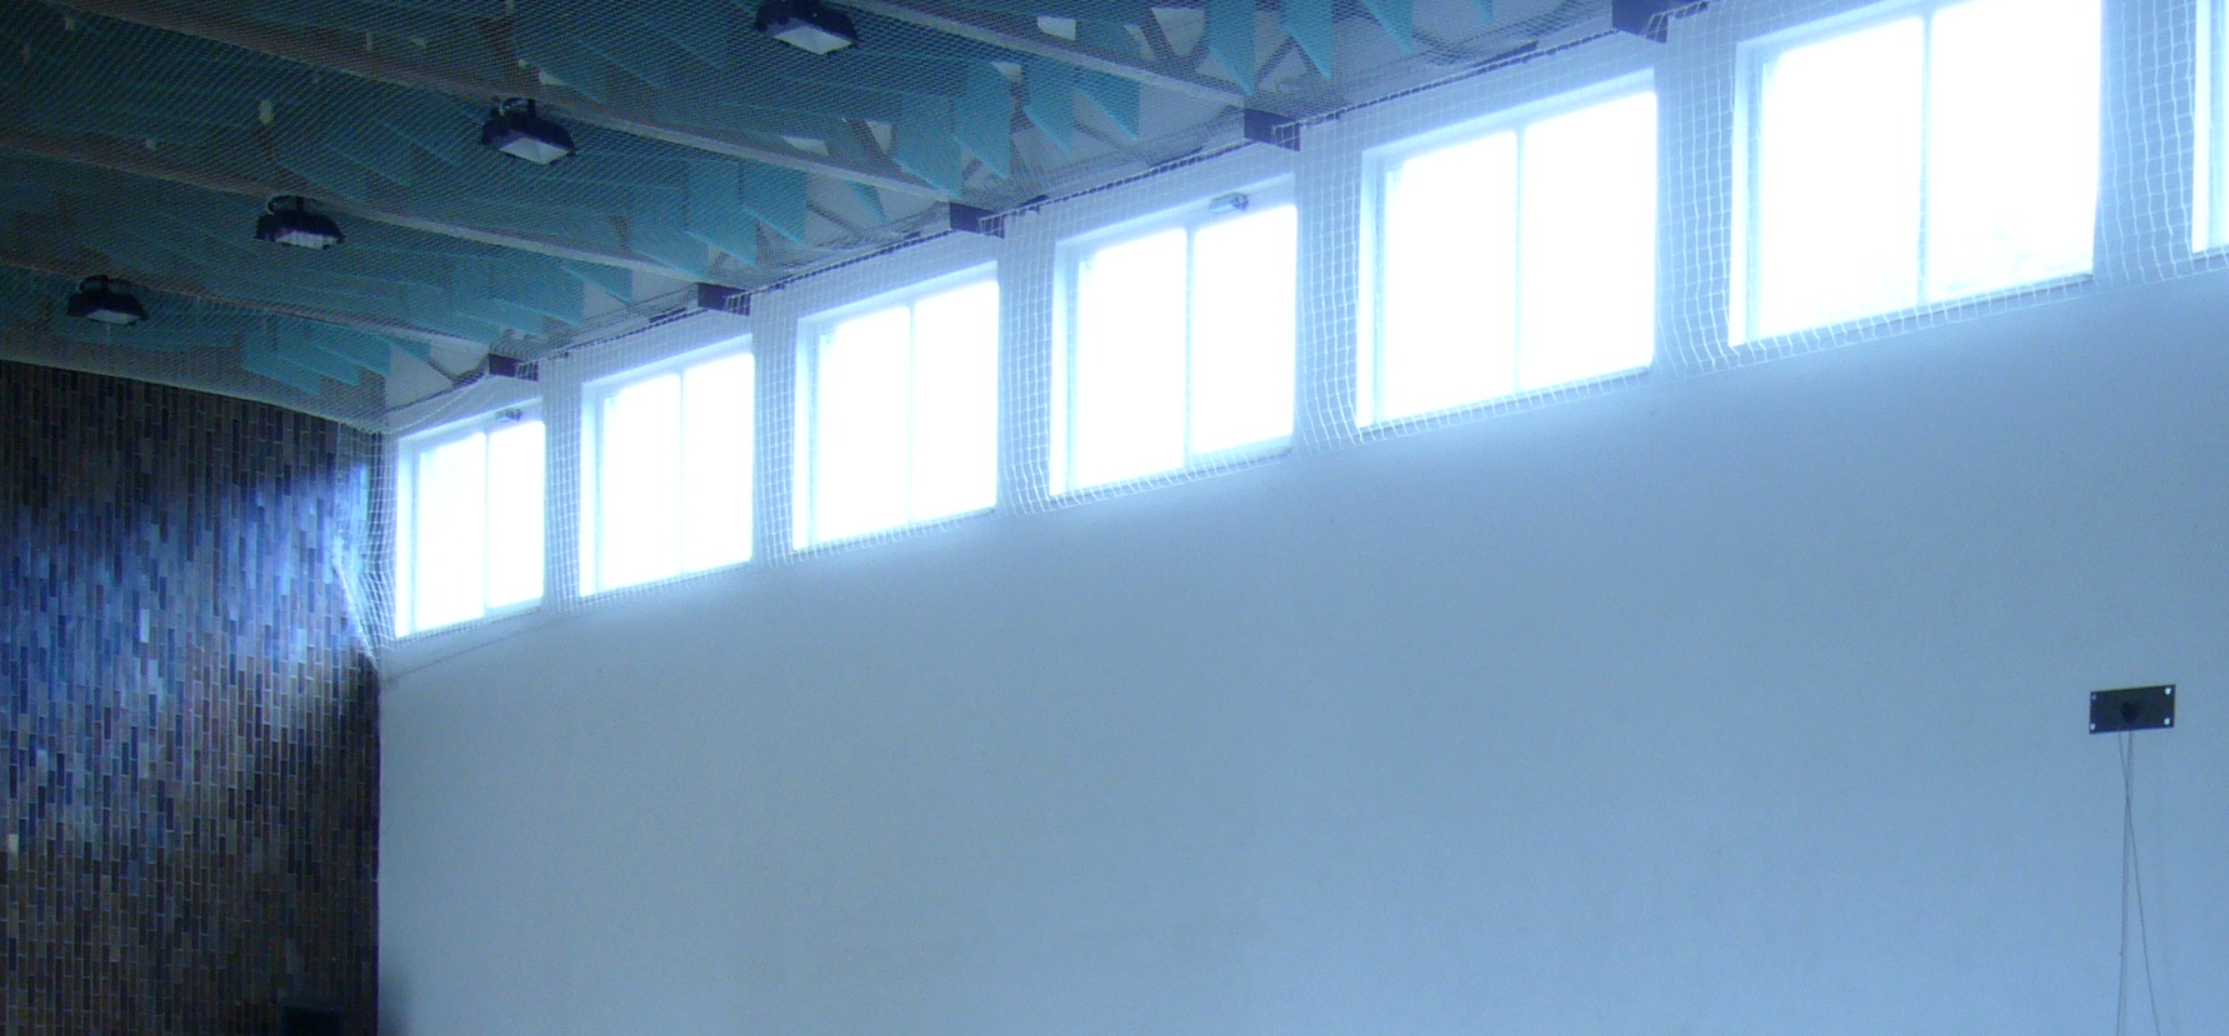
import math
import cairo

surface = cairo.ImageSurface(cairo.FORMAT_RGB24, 2229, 1036)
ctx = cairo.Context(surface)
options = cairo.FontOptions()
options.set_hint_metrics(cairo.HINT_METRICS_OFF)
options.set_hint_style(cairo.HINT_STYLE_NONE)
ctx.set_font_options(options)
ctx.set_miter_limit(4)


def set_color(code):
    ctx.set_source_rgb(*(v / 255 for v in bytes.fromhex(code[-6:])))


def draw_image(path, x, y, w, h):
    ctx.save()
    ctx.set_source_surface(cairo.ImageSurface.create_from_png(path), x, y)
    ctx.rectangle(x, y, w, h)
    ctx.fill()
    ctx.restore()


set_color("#ffffff")
ctx.paint()
draw_image("assets/img1.png", 0, 0, 2229, 1036)
surface.write_to_png("output.png")
